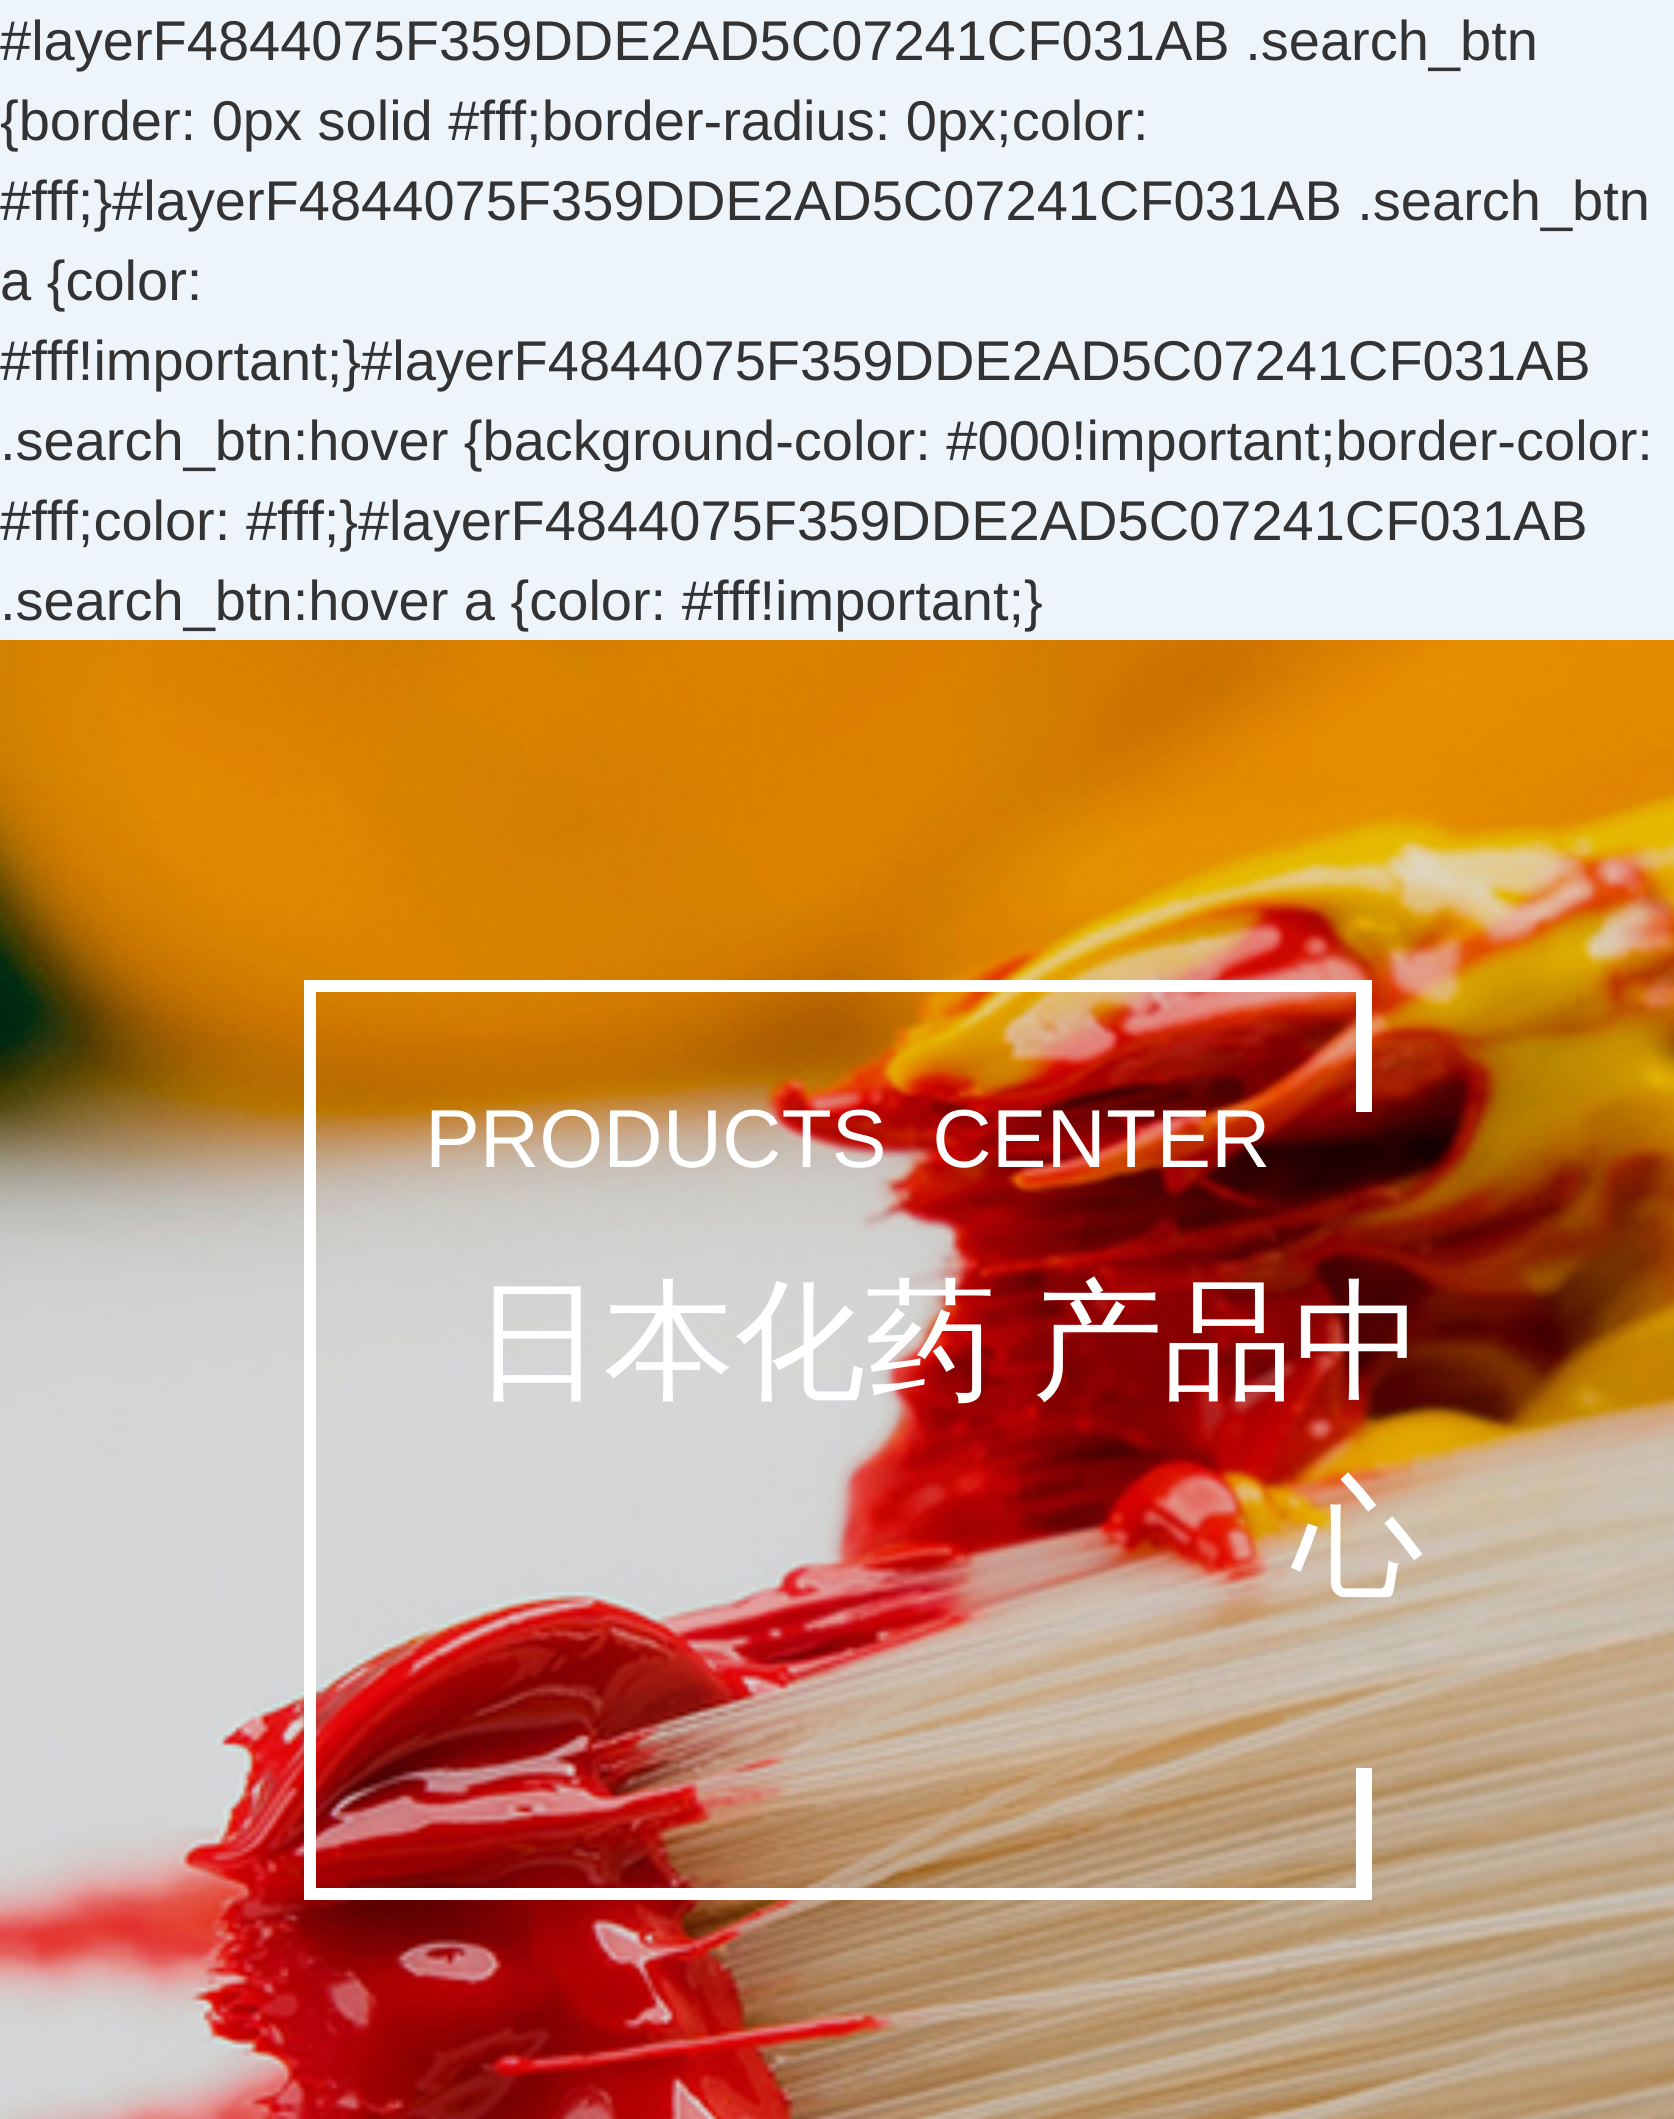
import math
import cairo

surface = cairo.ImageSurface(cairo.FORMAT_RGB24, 1674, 2119)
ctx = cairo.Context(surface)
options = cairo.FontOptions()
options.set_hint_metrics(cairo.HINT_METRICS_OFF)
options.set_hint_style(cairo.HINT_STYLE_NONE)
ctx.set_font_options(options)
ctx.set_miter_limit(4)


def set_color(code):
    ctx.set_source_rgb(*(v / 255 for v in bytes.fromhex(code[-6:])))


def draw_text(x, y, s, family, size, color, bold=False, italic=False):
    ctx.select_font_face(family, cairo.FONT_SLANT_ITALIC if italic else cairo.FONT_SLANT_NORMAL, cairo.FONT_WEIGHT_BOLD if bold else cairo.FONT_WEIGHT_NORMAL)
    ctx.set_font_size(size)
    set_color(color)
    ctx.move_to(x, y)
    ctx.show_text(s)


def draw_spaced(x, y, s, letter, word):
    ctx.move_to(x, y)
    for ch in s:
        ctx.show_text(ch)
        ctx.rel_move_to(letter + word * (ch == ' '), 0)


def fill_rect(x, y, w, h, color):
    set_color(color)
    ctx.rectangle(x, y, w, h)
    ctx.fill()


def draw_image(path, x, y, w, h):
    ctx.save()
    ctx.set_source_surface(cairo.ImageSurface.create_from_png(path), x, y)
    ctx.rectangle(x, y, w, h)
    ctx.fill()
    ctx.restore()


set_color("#edf5fb")
ctx.paint()
draw_text(0, 60, "#layerF4844075F359DDE2AD5C07241CF031AB .search_btn", "Liberation Sans", 56, "#333333")
draw_text(0, 140, "{border: 0px solid #fff;border-radius: 0px;color:", "Liberation Sans", 56, "#333333")
draw_text(0, 220, "#fff;}#layerF4844075F359DDE2AD5C07241CF031AB .search_btn", "Liberation Sans", 56, "#333333")
draw_text(0, 300, "a {color:", "Liberation Sans", 56, "#333333")
draw_text(0, 380, "#fff!important;}#layerF4844075F359DDE2AD5C07241CF031AB", "Liberation Sans", 56, "#333333")
draw_text(0, 460, ".search_btn:hover {background-color: #000!important;border-color:", "Liberation Sans", 56, "#333333")
draw_text(0, 540, "#fff;color: #fff;}#layerF4844075F359DDE2AD5C07241CF031AB", "Liberation Sans", 56, "#333333")
draw_text(0, 620, ".search_btn:hover a {color: #fff!important;}", "Liberation Sans", 56, "#333333")
draw_image("assets/img1.png", 0, 640, 1674, 1479)
fill_rect(316, 980, 1056, 12, "#ffffff")
fill_rect(316, 1888, 1056, 12, "#ffffff")
fill_rect(304, 980, 12, 920, "#ffffff")
fill_rect(1356, 992, 16, 120, "#ffffff")
draw_text(425, 1167, "PRODUCTS  CENTER", "Liberation Sans", 82.25, "#ffffff")
ctx.select_font_face("WenQuanYi Zen Hei Medium")
ctx.set_font_size(130.75)
draw_spaced(473, 1386, "日本化药 产品中", 0, -3)
draw_text(1293, 1583, "心", "WenQuanYi Zen Hei Medium", 130.75, "#ffffff")
fill_rect(1356, 1768, 16, 120, "#ffffff")
surface.write_to_png("output.png")
